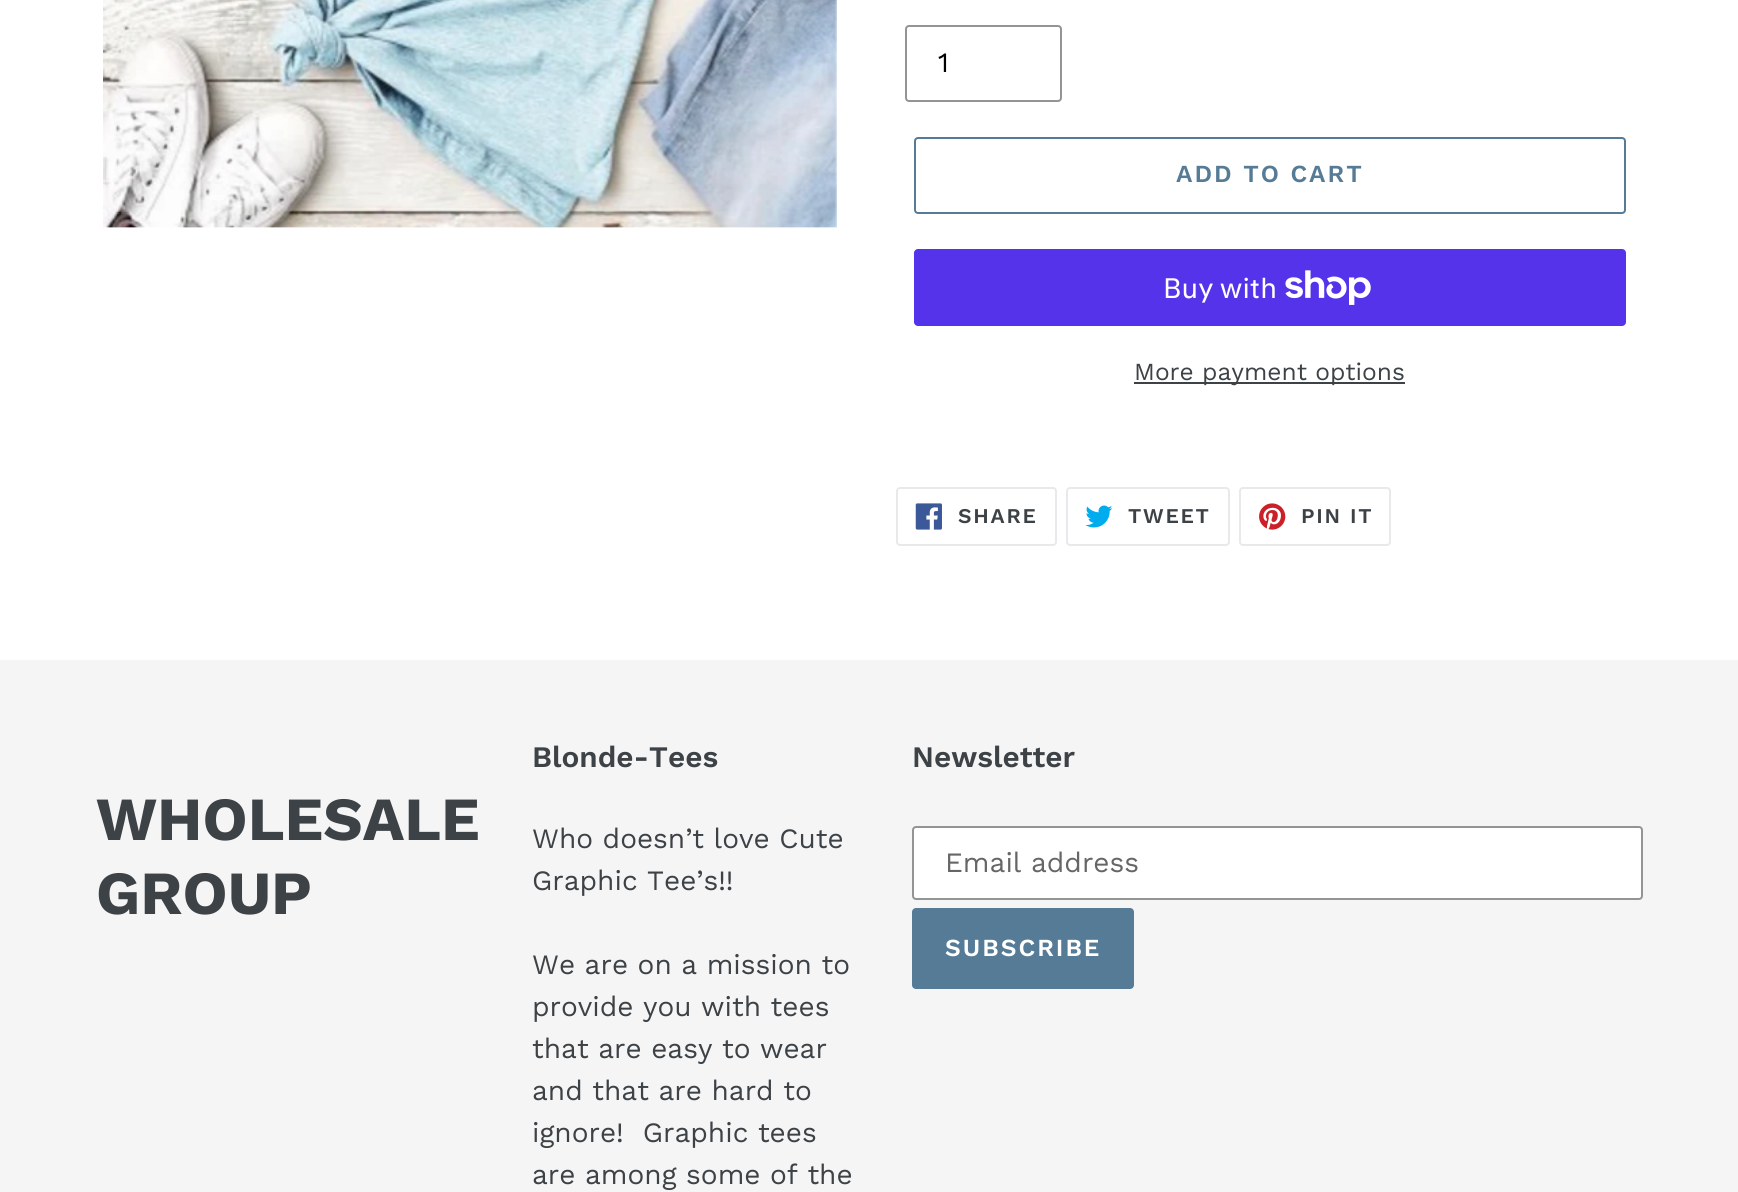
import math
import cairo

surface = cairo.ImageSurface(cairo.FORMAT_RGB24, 1738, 1192)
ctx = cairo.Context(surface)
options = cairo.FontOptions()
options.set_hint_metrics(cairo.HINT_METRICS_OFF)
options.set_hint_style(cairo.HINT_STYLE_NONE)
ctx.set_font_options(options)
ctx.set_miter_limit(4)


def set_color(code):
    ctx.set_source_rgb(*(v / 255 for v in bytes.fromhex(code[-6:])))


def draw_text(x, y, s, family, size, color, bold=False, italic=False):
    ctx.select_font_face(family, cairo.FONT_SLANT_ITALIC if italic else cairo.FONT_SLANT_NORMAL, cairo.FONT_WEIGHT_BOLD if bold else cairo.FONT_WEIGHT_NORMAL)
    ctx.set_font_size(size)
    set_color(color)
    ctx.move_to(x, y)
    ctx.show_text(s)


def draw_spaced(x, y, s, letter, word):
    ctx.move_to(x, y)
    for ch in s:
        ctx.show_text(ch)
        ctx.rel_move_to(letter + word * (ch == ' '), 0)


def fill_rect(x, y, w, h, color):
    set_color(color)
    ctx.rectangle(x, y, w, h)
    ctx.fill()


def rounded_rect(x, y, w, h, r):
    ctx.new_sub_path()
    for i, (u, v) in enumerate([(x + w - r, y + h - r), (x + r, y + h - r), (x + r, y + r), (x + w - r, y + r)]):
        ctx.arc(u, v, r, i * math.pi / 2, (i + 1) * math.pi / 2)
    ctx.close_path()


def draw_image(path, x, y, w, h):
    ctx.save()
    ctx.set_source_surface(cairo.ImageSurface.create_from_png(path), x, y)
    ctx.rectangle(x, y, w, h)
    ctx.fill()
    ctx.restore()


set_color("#ffffff")
ctx.paint()
draw_image("assets/img1.png", 103, 0, 734, 228)
rounded_rect(906, 26, 155, 75, 3)
set_color("#949494")
ctx.stroke()
draw_text(938, 72, "1", "Work Sans", 28, "#000000")
rounded_rect(915, 138, 710, 75, 3)
set_color("#557b97")
ctx.stroke()
ctx.select_font_face("Work Sans SemiBold")
ctx.set_font_size(24.5)
draw_spaced(1176, 182, "ADD TO CART", 2, 0)
set_color("#5433eb")
rounded_rect(914, 249, 712, 77, 4)
ctx.fill()
draw_text(1163, 298, "Buy with", "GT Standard", 28, "#ffffff")
draw_image("assets/img2.png", 1285, 270, 86, 35)
fill_rect(1134, 382, 271, 2, "#3d4246")
draw_text(1134, 380, "More payment options", "Work Sans", 24.5, "#3d4246")
rounded_rect(897, 488, 159, 57, 3)
set_color("#e8e9eb")
ctx.stroke()
draw_image("assets/img3.png", 915, 503, 27, 27)
ctx.select_font_face("Work Sans SemiBold")
ctx.set_font_size(21)
set_color("#3d4246")
draw_spaced(958, 523, "SHARE", 1.75, 0)
rounded_rect(1067, 488, 162, 57, 3)
set_color("#e8e9eb")
ctx.stroke()
draw_image("assets/img4.png", 1085, 505, 28, 23)
set_color("#3d4246")
draw_spaced(1128, 523, "TWEET", 1.75, 0)
rounded_rect(1240, 488, 150, 57, 3)
set_color("#e8e9eb")
ctx.stroke()
draw_image("assets/img5.png", 1259, 503, 27, 27)
set_color("#3d4246")
draw_spaced(1301, 523, "PIN IT", 1.75, 0)
fill_rect(0, 660, 1738, 532, "#f5f5f5")
draw_text(96, 840, "WHOLESALE", "Work Sans", 61.25, "#3d4246", bold=True)
draw_text(96, 914, "GROUP", "Work Sans", 61.25, "#3d4246", bold=True)
draw_text(532, 767, "Blonde-Tees", "Work Sans SemiBold", 29.75, "#3d4246")
draw_text(532, 848, "Who doesn’t love Cute", "Work Sans", 28, "#3d4246")
draw_text(532, 890, "Graphic Tee’s!!", "Work Sans", 28, "#3d4246")
draw_text(532, 974, "We are on a mission to", "Work Sans", 28, "#3d4246")
draw_text(532, 1016, "provide you with tees", "Work Sans", 28, "#3d4246")
draw_text(532, 1058, "that are easy to wear", "Work Sans", 28, "#3d4246")
draw_text(532, 1100, "and that are hard to", "Work Sans", 28, "#3d4246")
draw_text(532, 1142, "ignore!  Graphic tees", "Work Sans", 28, "#3d4246")
draw_text(532, 1184, "are among some of the", "Work Sans", 28, "#3d4246")
draw_text(912, 767, "Newsletter", "Work Sans SemiBold", 29.75, "#3d4246")
set_color("#ffffff")
rounded_rect(913, 827, 729, 72, 3)
ctx.fill_preserve()
set_color("#949494")
ctx.stroke()
draw_text(945, 872, "Email address", "Work Sans", 28, "#666666")
set_color("#557b97")
rounded_rect(912, 908, 222, 81, 4)
ctx.fill()
ctx.select_font_face("Work Sans SemiBold")
ctx.set_font_size(24.5)
set_color("#ffffff")
draw_spaced(945, 956, "SUBSCRIBE", 2, 0)
surface.write_to_png("output.png")
